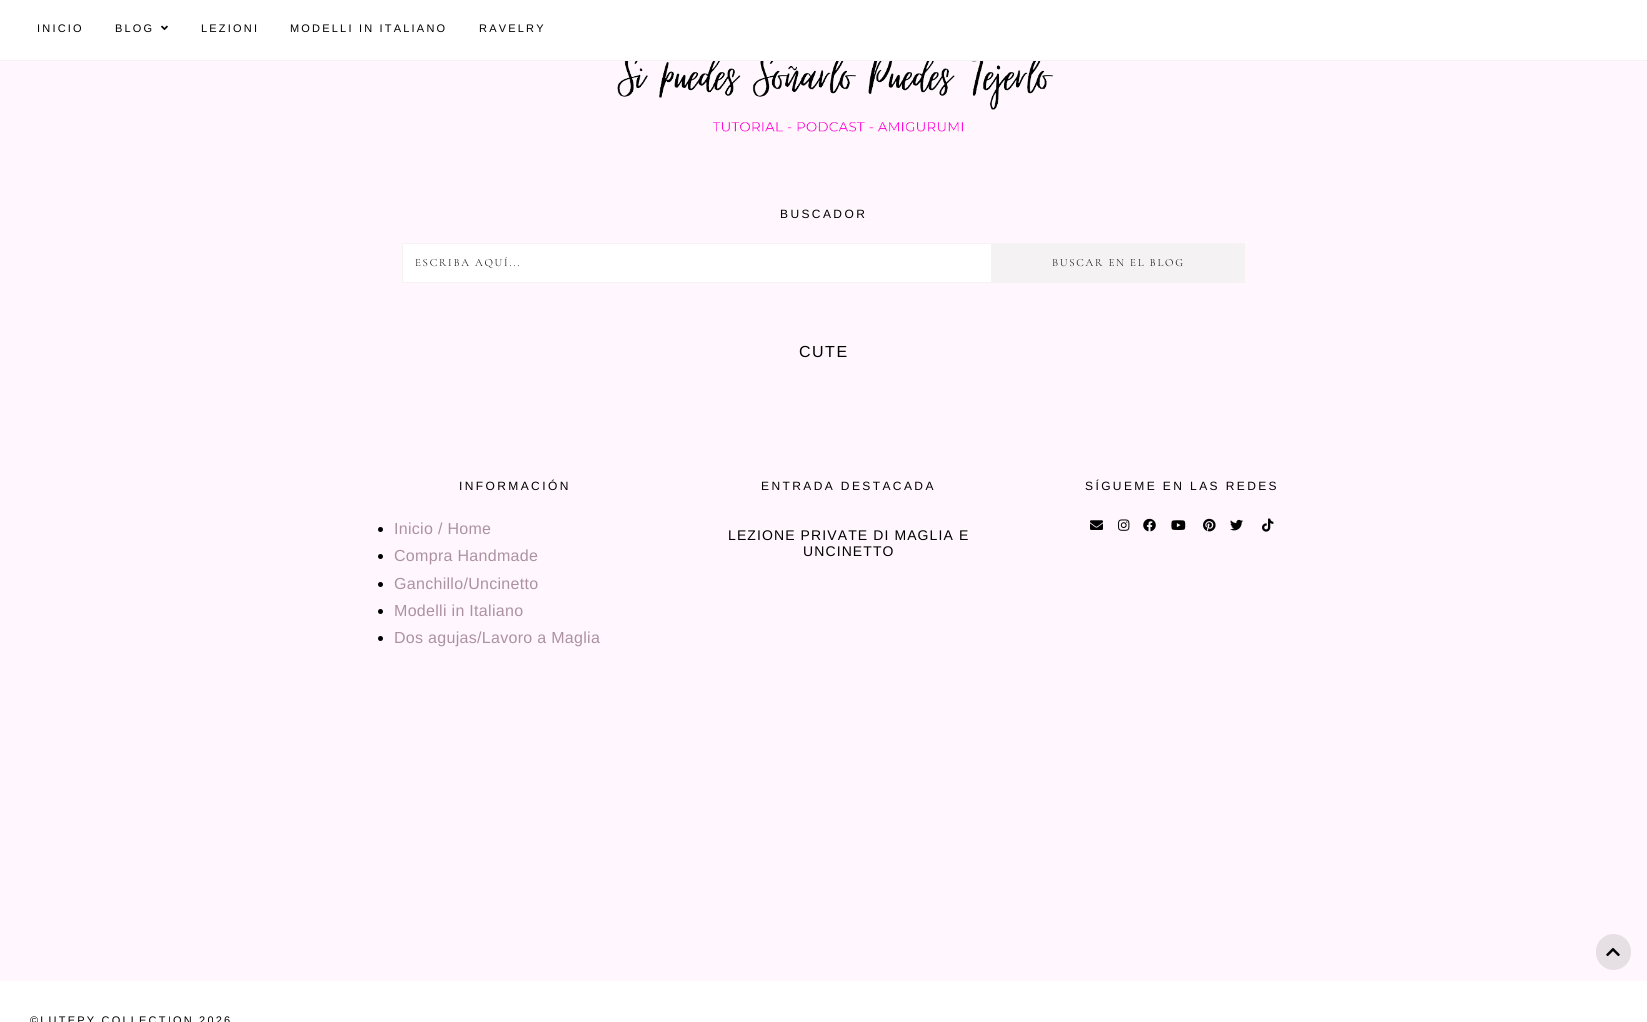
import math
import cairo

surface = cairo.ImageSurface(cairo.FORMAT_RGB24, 1647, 1022)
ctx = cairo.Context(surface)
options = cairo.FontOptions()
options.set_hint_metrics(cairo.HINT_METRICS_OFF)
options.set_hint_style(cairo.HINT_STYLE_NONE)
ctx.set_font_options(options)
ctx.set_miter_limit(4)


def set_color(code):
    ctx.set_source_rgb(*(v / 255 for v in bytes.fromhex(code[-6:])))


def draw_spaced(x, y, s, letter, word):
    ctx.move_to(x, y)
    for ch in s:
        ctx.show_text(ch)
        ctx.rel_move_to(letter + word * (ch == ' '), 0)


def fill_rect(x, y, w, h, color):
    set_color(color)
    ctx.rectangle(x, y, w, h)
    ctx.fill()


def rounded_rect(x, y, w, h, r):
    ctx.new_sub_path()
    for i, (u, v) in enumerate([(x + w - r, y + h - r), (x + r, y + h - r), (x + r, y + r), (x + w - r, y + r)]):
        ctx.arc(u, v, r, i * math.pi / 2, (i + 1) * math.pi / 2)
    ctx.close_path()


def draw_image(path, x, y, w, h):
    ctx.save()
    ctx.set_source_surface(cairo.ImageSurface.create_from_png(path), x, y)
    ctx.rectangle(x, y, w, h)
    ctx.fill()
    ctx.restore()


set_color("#fff7fd")
ctx.paint()
fill_rect(0, 0, 1647, 60, "#ffffff")
fill_rect(0, 60, 1647, 1, "#f5f2f4")
ctx.select_font_face("Liberation Sans")
ctx.set_font_size(11)
set_color("#000000")
draw_spaced(37, 32, "INICIO", 2.2, 0)
draw_spaced(115, 32, "BLOG", 2.2, 0)
draw_image("assets/img1.png", 161, 25, 7, 5)
draw_spaced(201, 32, "LEZIONI", 2.2, 0)
draw_spaced(290, 32, "MODELLI IN ITALIANO", 2.2, 0)
draw_spaced(479, 32, "RAVELRY", 2.2, 0)
draw_image("assets/img2.png", 617, 61, 437, 71)
ctx.set_font_size(12)
draw_spaced(780, 218, "BUSCADOR", 2.4, 0)
set_color("#ffffff")
ctx.rectangle(402.5, 243.5, 589, 39)
ctx.fill_preserve()
set_color("#f5f2f4")
ctx.set_line_width(1)
ctx.stroke()
ctx.select_font_face("Cormorant Garamond Light")
ctx.set_font_size(11)
set_color("#000000")
draw_spaced(415, 266, "ESCRIBA AQUÍ...", 1.75, 0)
fill_rect(992, 243, 253, 40, "#f5f2f4")
set_color("#000000")
draw_spaced(1052, 266, "BUSCAR EN EL BLOG", 1.75, 0)
ctx.select_font_face("Liberation Sans")
ctx.set_font_size(16)
draw_spaced(799, 357, "CUTE", 1.5, 0)
ctx.set_font_size(12)
draw_spaced(459, 490, "INFORMACIÓN", 2.4, 0)
ctx.new_path()
ctx.arc(380.5, 529.5, 2.5, 0, 2 * math.pi)
ctx.fill()
ctx.set_font_size(16)
set_color("#ac91a2")
draw_spaced(394, 534, "Inicio / Home", 0.3, 0)
set_color("#000000")
ctx.new_path()
ctx.arc(380.5, 556.5, 2.5, 0, 2 * math.pi)
ctx.fill()
set_color("#ac91a2")
draw_spaced(394, 561, "Compra Handmade", 0.3, 0)
set_color("#000000")
ctx.new_path()
ctx.arc(380.5, 584.5, 2.5, 0, 2 * math.pi)
ctx.fill()
set_color("#ac91a2")
draw_spaced(394, 589, "Ganchillo/Uncinetto", 0.3, 0)
set_color("#000000")
ctx.new_path()
ctx.arc(380.5, 611.5, 2.5, 0, 2 * math.pi)
ctx.fill()
set_color("#ac91a2")
draw_spaced(394, 616, "Modelli in Italiano", 0.3, 0)
set_color("#000000")
ctx.new_path()
ctx.arc(380.5, 638.5, 2.5, 0, 2 * math.pi)
ctx.fill()
set_color("#ac91a2")
draw_spaced(394, 643, "Dos agujas/Lavoro a Maglia", 0.3, 0)
ctx.set_font_size(12)
set_color("#000000")
draw_spaced(761, 490, "ENTRADA DESTACADA", 2.4, 0)
ctx.set_font_size(14)
draw_spaced(728, 540, "LEZIONE PRIVATE DI MAGLIA E", 1.1, 0)
draw_spaced(803, 556, "UNCINETTO", 1.1, 0)
ctx.set_font_size(12)
draw_spaced(1085, 490, "SÍGUEME EN LAS REDES", 2.4, 0)
draw_image("assets/img3.png", 1090, 520, 13, 10)
draw_image("assets/img4.png", 1118, 519, 12, 12)
draw_image("assets/img5.png", 1143, 518, 13, 14)
draw_image("assets/img6.png", 1171, 520, 15, 10)
draw_image("assets/img7.png", 1203, 518, 13, 14)
draw_image("assets/img8.png", 1230, 519, 13, 12)
draw_image("assets/img9.png", 1262, 518, 12, 14)
set_color("#e6dfe4")
rounded_rect(1596, 934, 35, 36, 17.5)
ctx.fill()
draw_image("assets/img10.png", 1606, 947, 14, 10)
fill_rect(0, 981, 1647, 41, "#ffffff")
ctx.set_font_size(11)
set_color("#000000")
draw_spaced(30, 1024, "©LUTEPY COLLECTION 2026", 2.2, 0)
surface.write_to_png("output.png")
